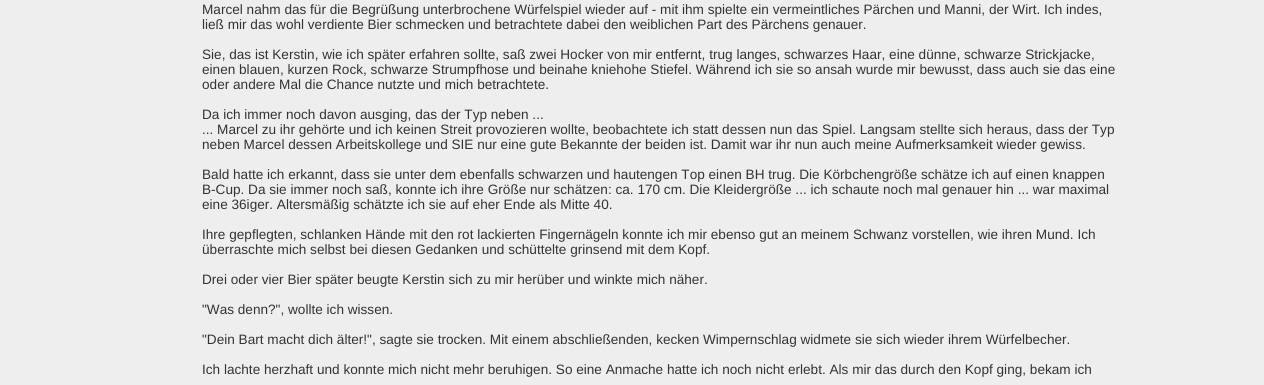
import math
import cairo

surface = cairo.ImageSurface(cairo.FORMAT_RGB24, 1264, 385)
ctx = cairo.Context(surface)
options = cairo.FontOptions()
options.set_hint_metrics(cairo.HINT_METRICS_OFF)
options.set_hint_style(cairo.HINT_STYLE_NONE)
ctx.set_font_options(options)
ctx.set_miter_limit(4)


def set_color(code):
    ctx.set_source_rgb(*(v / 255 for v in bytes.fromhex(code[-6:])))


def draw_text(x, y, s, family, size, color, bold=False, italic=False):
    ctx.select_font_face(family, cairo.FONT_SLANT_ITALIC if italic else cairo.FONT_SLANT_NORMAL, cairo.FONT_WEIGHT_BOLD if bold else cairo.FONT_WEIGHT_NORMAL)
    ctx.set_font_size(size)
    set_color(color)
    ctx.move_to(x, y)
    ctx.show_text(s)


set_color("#efeeef")
ctx.paint()
draw_text(202, 14, "Marcel nahm das für die Begrüßung unterbrochene Würfelspiel wieder auf - mit ihm spielte ein vermeintliches Pärchen und Manni, der Wirt. Ich indes,", "Liberation Sans", 13.6, "#333333")
draw_text(202, 29, "ließ mir das wohl verdiente Bier schmecken und betrachtete dabei den weiblichen Part des Pärchens genauer.", "Liberation Sans", 13.6, "#333333")
draw_text(202, 59, "Sie, das ist Kerstin, wie ich später erfahren sollte, saß zwei Hocker von mir entfernt, trug langes, schwarzes Haar, eine dünne, schwarze Strickjacke,", "Liberation Sans", 13.6, "#333333")
draw_text(202, 74, "einen blauen, kurzen Rock, schwarze Strumpfhose und beinahe kniehohe Stiefel. Während ich sie so ansah wurde mir bewusst, dass auch sie das eine", "Liberation Sans", 13.6, "#333333")
draw_text(202, 89, "oder andere Mal die Chance nutzte und mich betrachtete.", "Liberation Sans", 13.6, "#333333")
draw_text(202, 119, "Da ich immer noch davon ausging, das der Typ neben ...", "Liberation Sans", 13.6, "#333333")
draw_text(202, 134, "... Marcel zu ihr gehörte und ich keinen Streit provozieren wollte, beobachtete ich statt dessen nun das Spiel. Langsam stellte sich heraus, dass der Typ", "Liberation Sans", 13.6, "#333333")
draw_text(202, 149, "neben Marcel dessen Arbeitskollege und SIE nur eine gute Bekannte der beiden ist. Damit war ihr nun auch meine Aufmerksamkeit wieder gewiss.", "Liberation Sans", 13.6, "#333333")
draw_text(202, 179, "Bald hatte ich erkannt, dass sie unter dem ebenfalls schwarzen und hautengen Top einen BH trug. Die Körbchengröße schätze ich auf einen knappen", "Liberation Sans", 13.6, "#333333")
draw_text(202, 194, "B-Cup. Da sie immer noch saß, konnte ich ihre Größe nur schätzen: ca. 170 cm. Die Kleidergröße ... ich schaute noch mal genauer hin ... war maximal", "Liberation Sans", 13.6, "#333333")
draw_text(202, 209, "eine 36iger. Altersmäßig schätzte ich sie auf eher Ende als Mitte 40.", "Liberation Sans", 13.6, "#333333")
draw_text(202, 239, "Ihre gepflegten, schlanken Hände mit den rot lackierten Fingernägeln konnte ich mir ebenso gut an meinem Schwanz vorstellen, wie ihren Mund. Ich", "Liberation Sans", 13.6, "#333333")
draw_text(202, 254, "überraschte mich selbst bei diesen Gedanken und schüttelte grinsend mit dem Kopf.", "Liberation Sans", 13.6, "#333333")
draw_text(202, 284, "Drei oder vier Bier später beugte Kerstin sich zu mir herüber und winkte mich näher.", "Liberation Sans", 13.6, "#333333")
draw_text(202, 314, "\"Was denn?\", wollte ich wissen.", "Liberation Sans", 13.6, "#333333")
draw_text(202, 344, "\"Dein Bart macht dich älter!\", sagte sie trocken. Mit einem abschließenden, kecken Wimpernschlag widmete sie sich wieder ihrem Würfelbecher.", "Liberation Sans", 13.6, "#333333")
draw_text(202, 374, "Ich lachte herzhaft und konnte mich nicht mehr beruhigen. So eine Anmache hatte ich noch nicht erlebt. Als mir das durch den Kopf ging, bekam ich", "Liberation Sans", 13.6, "#333333")
surface.write_to_png("output.png")
